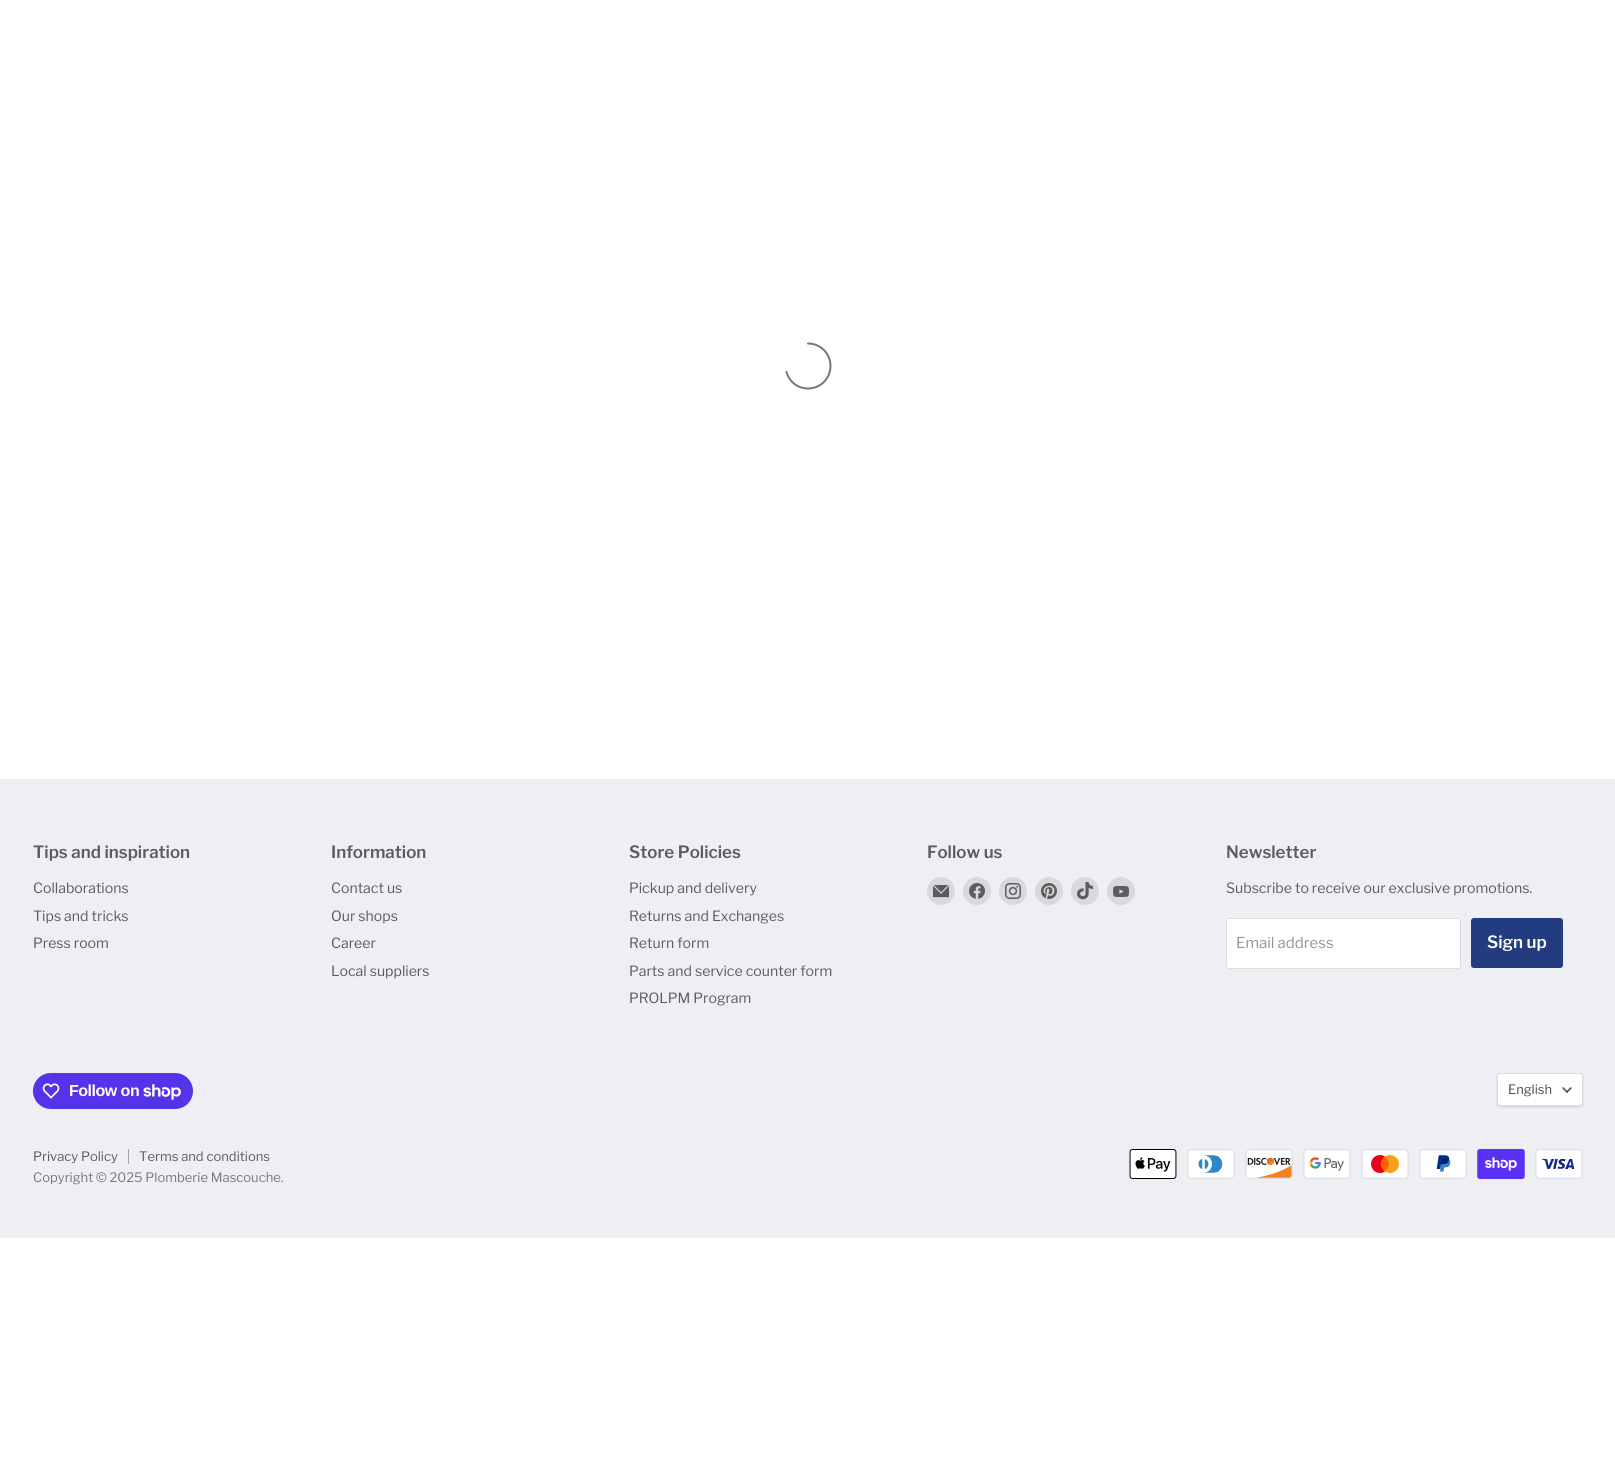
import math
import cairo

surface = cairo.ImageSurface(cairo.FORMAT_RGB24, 1615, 1464)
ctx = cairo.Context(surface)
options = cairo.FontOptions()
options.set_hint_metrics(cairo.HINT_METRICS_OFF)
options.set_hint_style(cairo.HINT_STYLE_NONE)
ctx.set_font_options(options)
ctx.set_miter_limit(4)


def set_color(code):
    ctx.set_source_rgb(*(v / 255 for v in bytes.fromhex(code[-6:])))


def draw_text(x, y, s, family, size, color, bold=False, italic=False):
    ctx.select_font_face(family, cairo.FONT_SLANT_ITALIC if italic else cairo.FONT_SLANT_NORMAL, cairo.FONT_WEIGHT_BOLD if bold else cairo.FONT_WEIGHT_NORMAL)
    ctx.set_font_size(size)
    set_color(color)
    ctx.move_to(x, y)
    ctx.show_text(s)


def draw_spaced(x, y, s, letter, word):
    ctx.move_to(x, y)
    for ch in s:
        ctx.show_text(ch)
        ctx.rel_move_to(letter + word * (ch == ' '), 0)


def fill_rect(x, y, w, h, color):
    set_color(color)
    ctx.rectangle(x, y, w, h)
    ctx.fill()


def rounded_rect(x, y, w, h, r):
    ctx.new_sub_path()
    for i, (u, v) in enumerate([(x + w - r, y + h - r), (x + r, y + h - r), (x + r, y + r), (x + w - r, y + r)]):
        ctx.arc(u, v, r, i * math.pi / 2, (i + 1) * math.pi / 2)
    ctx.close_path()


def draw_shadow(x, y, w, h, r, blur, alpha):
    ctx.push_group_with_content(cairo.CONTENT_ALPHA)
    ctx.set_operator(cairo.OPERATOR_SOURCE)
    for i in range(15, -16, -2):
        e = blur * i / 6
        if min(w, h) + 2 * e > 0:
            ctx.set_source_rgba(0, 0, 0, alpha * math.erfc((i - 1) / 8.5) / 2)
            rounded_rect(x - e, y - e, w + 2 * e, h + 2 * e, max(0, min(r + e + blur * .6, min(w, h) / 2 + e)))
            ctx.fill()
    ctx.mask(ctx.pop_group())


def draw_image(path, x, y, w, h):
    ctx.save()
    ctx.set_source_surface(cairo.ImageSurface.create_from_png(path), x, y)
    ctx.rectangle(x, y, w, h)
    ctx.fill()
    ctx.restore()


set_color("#ffffff")
ctx.paint()
ctx.new_path()
ctx.move_to(808, 343.5)
ctx.curve_to(820.5, 343.5, 830.5, 353.5, 830.5, 366)
ctx.curve_to(830.5, 378.5, 820.5, 388.5, 808, 388.5)
ctx.curve_to(797.5, 388.5, 789, 381.5, 786.5, 372)
set_color("#777777")
ctx.set_line_cap(cairo.LINE_CAP_ROUND)
ctx.stroke()
fill_rect(0, 779, 1615, 459, "#edeff3")
draw_text(33, 858, "Tips and inspiration", "Libre Franklin SemiBold", 16.9, "#5c5c5c")
draw_text(33, 893, "Collaborations", "Libre Franklin Thin", 14.1, "#5c5c5c")
draw_text(33, 921, "Tips and tricks", "Libre Franklin Thin", 14.1, "#5c5c5c")
draw_text(33, 948, "Press room", "Libre Franklin Thin", 14.1, "#5c5c5c")
draw_text(331, 858, "Information", "Libre Franklin SemiBold", 16.9, "#5c5c5c")
draw_text(331, 893, "Contact us", "Libre Franklin Thin", 14.1, "#5c5c5c")
draw_text(331, 921, "Our shops", "Libre Franklin Thin", 14.1, "#5c5c5c")
draw_text(331, 948, "Career", "Libre Franklin Thin", 14.1, "#5c5c5c")
draw_text(331, 976, "Local suppliers", "Libre Franklin Thin", 14.1, "#5c5c5c")
draw_text(629, 858, "Store Policies", "Libre Franklin SemiBold", 16.9, "#5c5c5c")
draw_text(629, 893, "Pickup and delivery", "Libre Franklin Thin", 14.1, "#5c5c5c")
draw_text(629, 921, "Returns and Exchanges", "Libre Franklin Thin", 14.1, "#5c5c5c")
draw_text(629, 948, "Return form", "Libre Franklin Thin", 14.1, "#5c5c5c")
draw_text(629, 976, "Parts and service counter form", "Libre Franklin Thin", 14.1, "#5c5c5c")
draw_text(629, 1003, "PROLPM Program", "Libre Franklin Thin", 14.1, "#5c5c5c")
draw_text(927, 858, "Follow us", "Libre Franklin SemiBold", 16.9, "#5c5c5c")
set_color("#d7d9dc")
ctx.new_path()
ctx.arc(941, 891, 14, 0, 2 * math.pi)
ctx.fill()
draw_image("assets/img1.png", 933, 885, 16, 13)
ctx.arc(977, 891, 14, 0, 2 * math.pi)
ctx.fill()
draw_image("assets/img2.png", 969, 883, 16, 16)
ctx.arc(1013, 891, 14, 0, 2 * math.pi)
ctx.fill()
draw_image("assets/img3.png", 1005, 883, 16, 16)
ctx.arc(1049, 891, 14, 0, 2 * math.pi)
ctx.fill()
draw_image("assets/img4.png", 1041, 883, 16, 16)
ctx.arc(1085, 891, 14, 0, 2 * math.pi)
ctx.fill()
draw_image("assets/img5.png", 1077, 882, 16, 18)
ctx.arc(1121, 891, 14, 0, 2 * math.pi)
ctx.fill()
draw_image("assets/img6.png", 1113, 886, 16, 11)
draw_text(1226, 858, "Newsletter", "Libre Franklin SemiBold", 16.9, "#5c5c5c")
draw_text(1226, 893, "Subscribe to receive our exclusive promotions.", "Libre Franklin Thin", 14.1, "#5c5c5c")
set_color("#ffffff")
rounded_rect(1226.5, 918.5, 234, 50, 2.5)
ctx.fill_preserve()
set_color("#dddddd")
ctx.set_line_width(1)
ctx.set_line_cap(cairo.LINE_CAP_BUTT)
ctx.stroke()
draw_text(1236, 948, "Email address", "Libre Franklin Thin", 15, "#949494")
set_color("#233c80")
rounded_rect(1471.5, 918.5, 91, 49, 2.5)
ctx.fill_preserve()
ctx.stroke()
draw_text(1487, 948, "Sign up", "Libre Franklin SemiBold", 16.9, "#ffffff")
set_color("#5433eb")
rounded_rect(33, 1073, 160, 36, 18)
ctx.fill()
draw_image("assets/img7.png", 42, 1083, 18, 16)
ctx.select_font_face("Liberation Sans", cairo.FONT_SLANT_NORMAL, cairo.FONT_WEIGHT_BOLD)
ctx.set_font_size(16)
set_color("#ffffff")
draw_spaced(69, 1096, "Follow on", -0.5, 0)
draw_image("assets/img8.png", 143, 1084, 38, 16)
set_color("#000000")
draw_shadow(1497, 1074, 86, 33, 3, 1, 0.15)
set_color("#ffffff")
rounded_rect(1497.5, 1073.5, 85, 32, 2.5)
ctx.fill_preserve()
set_color("#dddddd")
ctx.stroke()
draw_text(1508, 1094, "English", "Libre Franklin Thin", 13, "#4d4d4d")
draw_image("assets/img9.png", 1562, 1087, 10, 6)
fill_rect(128, 1149, 1, 15, "#a5a6a8")
draw_text(33, 1161, "Privacy Policy", "Libre Franklin Thin", 13, "#5c5c5c")
draw_text(139, 1161, "Terms and conditions", "Libre Franklin Thin", 13, "#5c5c5c")
draw_text(33, 1182, "Copyright © 2025 Plomberie Mascouche.", "Libre Franklin Thin", 13, "#79797a")
draw_image("assets/img10.png", 1129, 1149, 48, 30)
draw_image("assets/img11.png", 1187, 1149, 48, 30)
draw_image("assets/img12.png", 1245, 1149, 48, 30)
draw_image("assets/img13.png", 1303, 1149, 48, 30)
draw_image("assets/img14.png", 1361, 1149, 48, 30)
draw_image("assets/img15.png", 1419, 1149, 48, 30)
draw_image("assets/img16.png", 1477, 1149, 48, 30)
draw_image("assets/img17.png", 1535, 1149, 48, 30)
surface.write_to_png("output.png")
